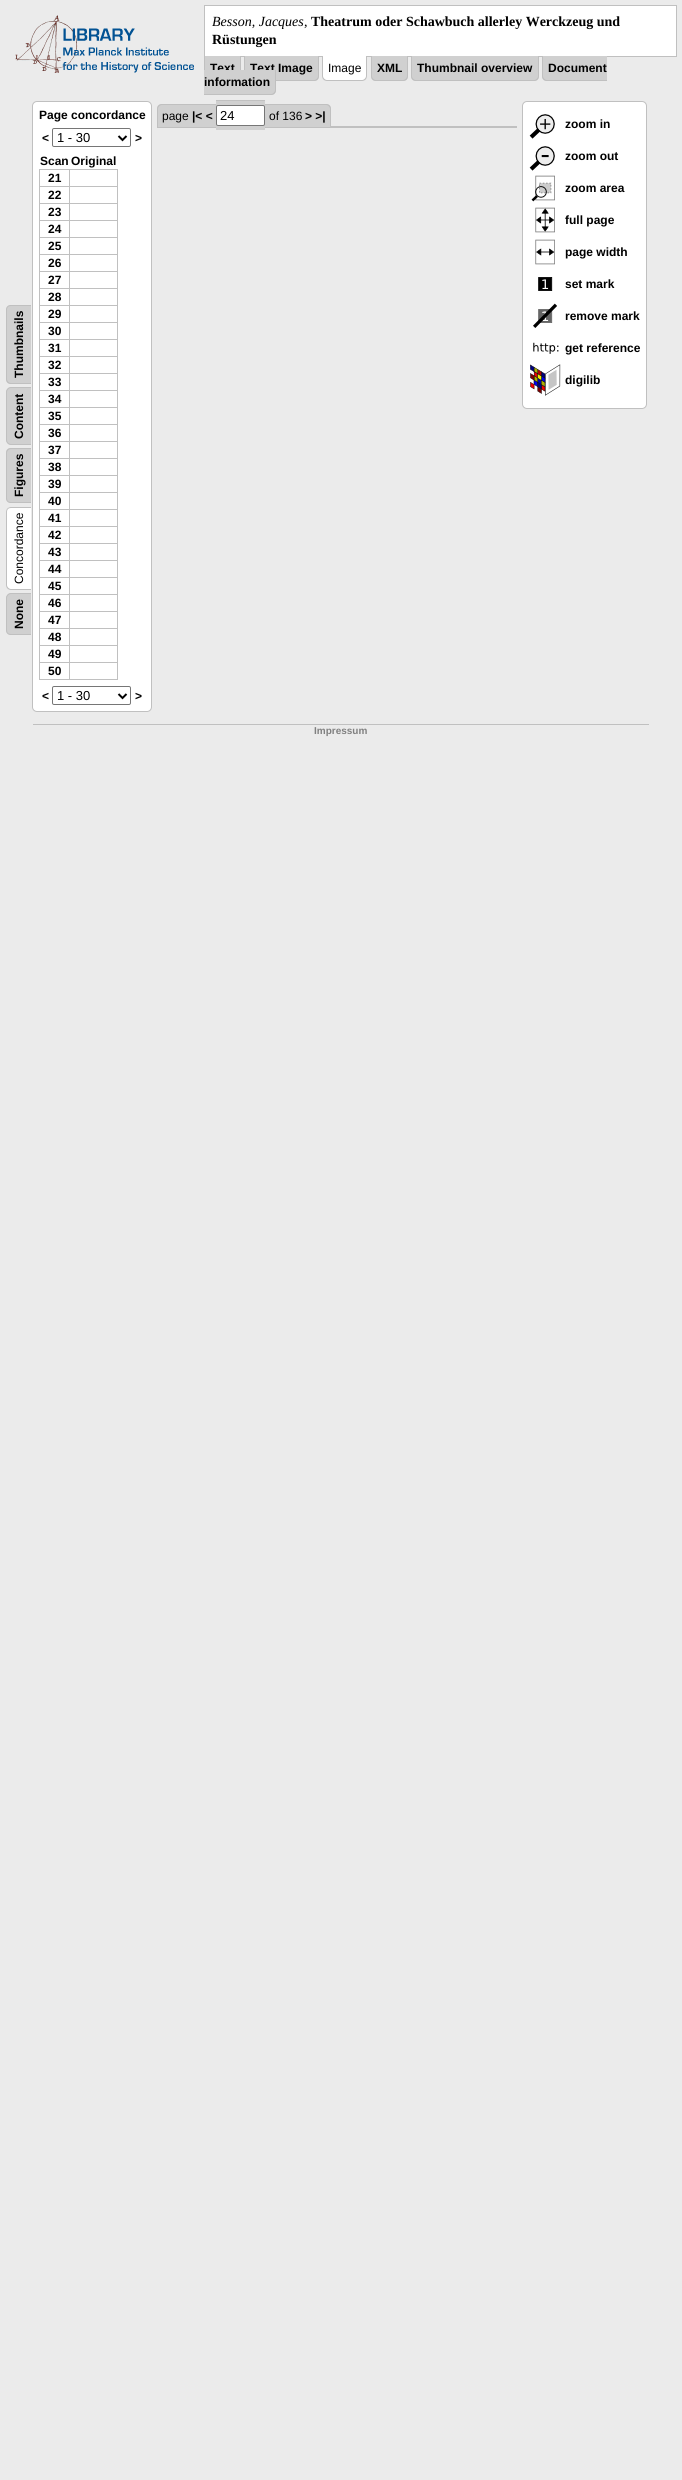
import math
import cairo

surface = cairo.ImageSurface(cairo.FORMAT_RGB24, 682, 2480)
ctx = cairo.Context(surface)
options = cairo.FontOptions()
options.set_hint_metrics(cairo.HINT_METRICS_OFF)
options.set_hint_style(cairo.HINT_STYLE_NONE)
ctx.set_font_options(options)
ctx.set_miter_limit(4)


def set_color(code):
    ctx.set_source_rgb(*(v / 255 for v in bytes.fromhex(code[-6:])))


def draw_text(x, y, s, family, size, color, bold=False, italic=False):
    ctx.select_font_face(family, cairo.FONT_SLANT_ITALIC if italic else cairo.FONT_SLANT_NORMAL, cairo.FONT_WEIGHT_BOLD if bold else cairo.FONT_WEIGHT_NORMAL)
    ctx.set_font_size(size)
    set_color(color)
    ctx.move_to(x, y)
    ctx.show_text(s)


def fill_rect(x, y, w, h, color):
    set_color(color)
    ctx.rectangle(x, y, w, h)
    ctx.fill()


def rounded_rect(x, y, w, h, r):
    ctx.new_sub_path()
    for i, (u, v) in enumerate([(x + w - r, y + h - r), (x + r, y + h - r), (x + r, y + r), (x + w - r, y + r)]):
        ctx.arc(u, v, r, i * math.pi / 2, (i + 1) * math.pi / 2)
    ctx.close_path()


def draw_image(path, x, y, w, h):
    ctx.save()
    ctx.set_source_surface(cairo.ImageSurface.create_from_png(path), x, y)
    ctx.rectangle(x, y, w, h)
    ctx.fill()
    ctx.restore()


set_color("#ebebeb")
ctx.paint()
draw_image("assets/img1.png", 15, 15, 179, 58)
set_color("#ffffff")
ctx.rectangle(204.5, 5.5, 472, 51)
ctx.fill_preserve()
set_color("#c0c0c0")
ctx.set_line_width(1)
ctx.stroke()
draw_text(212, 26, "Besson, Jacques", "Liberation Serif", 14, "#000000", italic=True)
draw_text(304, 26, ",", "Liberation Serif", 14, "#000000")
draw_text(311, 26, "Theatrum oder Schawbuch allerley Werckzeug und", "Liberation Serif", 14, "#000000", bold=True)
draw_text(212, 44, "Rüstungen", "Liberation Serif", 14, "#000000", bold=True)
fill_rect(205, 56, 35, 14, "#d0d0d0")
set_color("#c0c0c0")
ctx.set_fill_rule(cairo.FILL_RULE_EVEN_ODD)
ctx.new_path()
ctx.move_to(204, 56)
ctx.line_to(241, 56)
ctx.line_to(241, 76)
ctx.curve_to(241, 79, 239, 81, 236, 81)
ctx.line_to(209, 81)
ctx.curve_to(206, 81, 204, 79, 204, 76)
ctx.close_path()
ctx.move_to(205, 56)
ctx.line_to(240, 56)
ctx.line_to(240, 76)
ctx.curve_to(240, 78, 238, 80, 236, 80)
ctx.line_to(209, 80)
ctx.curve_to(207, 80, 205, 78, 205, 76)
ctx.close_path()
ctx.fill()
draw_text(210, 72, "Text", "Liberation Sans", 12, "#000000", bold=True)
set_color("#d0d0d0")
ctx.new_path()
ctx.move_to(244, 56)
ctx.line_to(319, 56)
ctx.line_to(319, 76)
ctx.curve_to(319, 79, 317, 81, 314, 81)
ctx.line_to(249, 81)
ctx.curve_to(246, 81, 244, 79, 244, 76)
ctx.close_path()
ctx.fill()
set_color("#c0c0c0")
ctx.new_path()
ctx.move_to(244, 56)
ctx.line_to(319, 56)
ctx.line_to(319, 76)
ctx.curve_to(319, 79, 317, 81, 314, 81)
ctx.line_to(249, 81)
ctx.curve_to(246, 81, 244, 79, 244, 76)
ctx.close_path()
ctx.move_to(245, 56)
ctx.line_to(318, 56)
ctx.line_to(318, 76)
ctx.curve_to(318, 78, 316, 80, 314, 80)
ctx.line_to(249, 80)
ctx.curve_to(247, 80, 245, 78, 245, 76)
ctx.close_path()
ctx.fill()
draw_text(250, 72, "Text Image", "Liberation Sans", 12, "#000000", bold=True)
set_color("#ffffff")
ctx.new_path()
ctx.move_to(322, 56)
ctx.line_to(367, 56)
ctx.line_to(367, 76)
ctx.curve_to(367, 79, 365, 81, 362, 81)
ctx.line_to(327, 81)
ctx.curve_to(324, 81, 322, 79, 322, 76)
ctx.close_path()
ctx.fill()
set_color("#c0c0c0")
ctx.new_path()
ctx.move_to(322, 56)
ctx.line_to(367, 56)
ctx.line_to(367, 76)
ctx.curve_to(367, 79, 365, 81, 362, 81)
ctx.line_to(327, 81)
ctx.curve_to(324, 81, 322, 79, 322, 76)
ctx.close_path()
ctx.move_to(323, 56)
ctx.line_to(366, 56)
ctx.line_to(366, 76)
ctx.curve_to(366, 78, 364, 80, 362, 80)
ctx.line_to(327, 80)
ctx.curve_to(325, 80, 323, 78, 323, 76)
ctx.close_path()
ctx.fill()
draw_text(328, 72, "Image", "Liberation Sans", 12, "#000000")
set_color("#d0d0d0")
ctx.new_path()
ctx.move_to(371, 56)
ctx.line_to(408, 56)
ctx.line_to(408, 76)
ctx.curve_to(408, 79, 406, 81, 403, 81)
ctx.line_to(376, 81)
ctx.curve_to(373, 81, 371, 79, 371, 76)
ctx.close_path()
ctx.fill()
set_color("#c0c0c0")
ctx.new_path()
ctx.move_to(371, 56)
ctx.line_to(408, 56)
ctx.line_to(408, 76)
ctx.curve_to(408, 79, 406, 81, 403, 81)
ctx.line_to(376, 81)
ctx.curve_to(373, 81, 371, 79, 371, 76)
ctx.close_path()
ctx.move_to(372, 56)
ctx.line_to(407, 56)
ctx.line_to(407, 76)
ctx.curve_to(407, 78, 405, 80, 403, 80)
ctx.line_to(376, 80)
ctx.curve_to(374, 80, 372, 78, 372, 76)
ctx.close_path()
ctx.fill()
draw_text(377, 72, "XML", "Liberation Sans", 12, "#000000", bold=True)
set_color("#d0d0d0")
ctx.new_path()
ctx.move_to(411, 56)
ctx.line_to(539, 56)
ctx.line_to(539, 76)
ctx.curve_to(539, 79, 537, 81, 534, 81)
ctx.line_to(416, 81)
ctx.curve_to(413, 81, 411, 79, 411, 76)
ctx.close_path()
ctx.fill()
set_color("#c0c0c0")
ctx.new_path()
ctx.move_to(411, 56)
ctx.line_to(539, 56)
ctx.line_to(539, 76)
ctx.curve_to(539, 79, 537, 81, 534, 81)
ctx.line_to(416, 81)
ctx.curve_to(413, 81, 411, 79, 411, 76)
ctx.close_path()
ctx.move_to(412, 56)
ctx.line_to(538, 56)
ctx.line_to(538, 76)
ctx.curve_to(538, 78, 536, 80, 534, 80)
ctx.line_to(416, 80)
ctx.curve_to(414, 80, 412, 78, 412, 76)
ctx.close_path()
ctx.fill()
draw_text(417, 72, "Thumbnail overview", "Liberation Sans", 12, "#000000", bold=True)
set_color("#d0d0d0")
ctx.new_path()
ctx.move_to(542, 56)
ctx.line_to(607, 56)
ctx.line_to(607, 81)
ctx.line_to(547, 81)
ctx.curve_to(544, 81, 542, 79, 542, 76)
ctx.close_path()
ctx.fill()
set_color("#c0c0c0")
ctx.new_path()
ctx.move_to(542, 56)
ctx.line_to(607, 56)
ctx.line_to(607, 81)
ctx.line_to(547, 81)
ctx.curve_to(544, 81, 542, 79, 542, 76)
ctx.close_path()
ctx.move_to(543, 56)
ctx.line_to(607, 56)
ctx.line_to(607, 80)
ctx.line_to(547, 80)
ctx.curve_to(545, 80, 543, 78, 543, 76)
ctx.close_path()
ctx.fill()
draw_text(548, 72, "Document", "Liberation Sans", 12, "#000000", bold=True)
set_color("#d0d0d0")
ctx.new_path()
ctx.move_to(204, 70)
ctx.line_to(276, 70)
ctx.line_to(276, 90)
ctx.curve_to(276, 93, 274, 95, 271, 95)
ctx.line_to(204, 95)
ctx.close_path()
ctx.fill()
set_color("#c0c0c0")
ctx.new_path()
ctx.move_to(204, 70)
ctx.line_to(276, 70)
ctx.line_to(276, 90)
ctx.curve_to(276, 93, 274, 95, 271, 95)
ctx.line_to(204, 95)
ctx.close_path()
ctx.move_to(204, 70)
ctx.line_to(275, 70)
ctx.line_to(275, 90)
ctx.curve_to(275, 92, 273, 94, 271, 94)
ctx.line_to(204, 94)
ctx.close_path()
ctx.fill()
draw_text(204, 86, "information", "Liberation Sans", 12, "#000000", bold=True)
set_color("#d0d0d0")
ctx.set_fill_rule(cairo.FILL_RULE_WINDING)
ctx.new_path()
ctx.move_to(6, 379)
ctx.line_to(6, 310)
ctx.curve_to(6, 307, 8, 305, 11, 305)
ctx.line_to(31, 305)
ctx.line_to(31, 384)
ctx.line_to(11, 384)
ctx.curve_to(8, 384, 6, 382, 6, 379)
ctx.close_path()
ctx.fill()
set_color("#c0c0c0")
ctx.set_fill_rule(cairo.FILL_RULE_EVEN_ODD)
ctx.new_path()
ctx.move_to(6, 379)
ctx.line_to(6, 310)
ctx.curve_to(6, 307, 8, 305, 11, 305)
ctx.line_to(31, 305)
ctx.line_to(31, 384)
ctx.line_to(11, 384)
ctx.curve_to(8, 384, 6, 382, 6, 379)
ctx.close_path()
ctx.move_to(7, 379)
ctx.line_to(7, 310)
ctx.curve_to(7, 307, 9, 306, 11, 306)
ctx.line_to(31, 306)
ctx.line_to(31, 383)
ctx.line_to(11, 383)
ctx.curve_to(9, 383, 7, 381, 7, 379)
ctx.close_path()
ctx.fill()
ctx.save()
ctx.translate(23, 378)
ctx.rotate(-90 * math.pi / 180)
draw_text(0, 0, "Thumbnails", "Liberation Sans", 12, "#000000", bold=True)
ctx.restore()
set_color("#d0d0d0")
ctx.set_fill_rule(cairo.FILL_RULE_WINDING)
ctx.new_path()
ctx.move_to(6, 440)
ctx.line_to(6, 392)
ctx.curve_to(6, 390, 8, 387, 11, 387)
ctx.line_to(31, 387)
ctx.line_to(31, 445)
ctx.line_to(11, 445)
ctx.curve_to(8, 445, 6, 442, 6, 440)
ctx.close_path()
ctx.fill()
set_color("#c0c0c0")
ctx.set_fill_rule(cairo.FILL_RULE_EVEN_ODD)
ctx.new_path()
ctx.move_to(6, 440)
ctx.line_to(6, 392)
ctx.curve_to(6, 390, 8, 387, 11, 387)
ctx.line_to(31, 387)
ctx.line_to(31, 445)
ctx.line_to(11, 445)
ctx.curve_to(8, 445, 6, 442, 6, 440)
ctx.close_path()
ctx.move_to(7, 440)
ctx.line_to(7, 392)
ctx.curve_to(7, 390, 9, 388, 11, 388)
ctx.line_to(31, 388)
ctx.line_to(31, 444)
ctx.line_to(11, 444)
ctx.curve_to(9, 444, 7, 442, 7, 440)
ctx.close_path()
ctx.fill()
ctx.save()
ctx.translate(23, 439)
ctx.rotate(-90 * math.pi / 180)
draw_text(0, 0, "Content", "Liberation Sans", 12, "#000000", bold=True)
ctx.restore()
set_color("#d0d0d0")
ctx.set_fill_rule(cairo.FILL_RULE_WINDING)
ctx.new_path()
ctx.move_to(6, 498)
ctx.line_to(6, 453)
ctx.curve_to(6, 450, 8, 448, 11, 448)
ctx.line_to(31, 448)
ctx.line_to(31, 503)
ctx.line_to(11, 503)
ctx.curve_to(8, 503, 6, 501, 6, 498)
ctx.close_path()
ctx.fill()
set_color("#c0c0c0")
ctx.set_fill_rule(cairo.FILL_RULE_EVEN_ODD)
ctx.new_path()
ctx.move_to(6, 498)
ctx.line_to(6, 453)
ctx.curve_to(6, 450, 8, 448, 11, 448)
ctx.line_to(31, 448)
ctx.line_to(31, 503)
ctx.line_to(11, 503)
ctx.curve_to(8, 503, 6, 501, 6, 498)
ctx.close_path()
ctx.move_to(7, 498)
ctx.line_to(7, 453)
ctx.curve_to(7, 451, 9, 449, 11, 449)
ctx.line_to(31, 449)
ctx.line_to(31, 502)
ctx.line_to(11, 502)
ctx.curve_to(9, 502, 7, 501, 7, 498)
ctx.close_path()
ctx.fill()
ctx.save()
ctx.translate(23, 497)
ctx.rotate(-90 * math.pi / 180)
draw_text(0, 0, "Figures", "Liberation Sans", 12, "#000000", bold=True)
ctx.restore()
set_color("#ffffff")
ctx.set_fill_rule(cairo.FILL_RULE_WINDING)
ctx.new_path()
ctx.move_to(6, 585)
ctx.line_to(6, 512)
ctx.curve_to(6, 509, 8, 507, 11, 507)
ctx.line_to(31, 507)
ctx.line_to(31, 590)
ctx.line_to(11, 590)
ctx.curve_to(8, 590, 6, 588, 6, 585)
ctx.close_path()
ctx.fill()
set_color("#c0c0c0")
ctx.set_fill_rule(cairo.FILL_RULE_EVEN_ODD)
ctx.new_path()
ctx.move_to(6, 585)
ctx.line_to(6, 512)
ctx.curve_to(6, 509, 8, 507, 11, 507)
ctx.line_to(31, 507)
ctx.line_to(31, 590)
ctx.line_to(11, 590)
ctx.curve_to(8, 590, 6, 588, 6, 585)
ctx.close_path()
ctx.move_to(7, 585)
ctx.line_to(7, 512)
ctx.curve_to(7, 509, 9, 508, 11, 508)
ctx.line_to(31, 508)
ctx.line_to(31, 589)
ctx.line_to(11, 589)
ctx.curve_to(9, 589, 7, 587, 7, 585)
ctx.close_path()
ctx.fill()
ctx.save()
ctx.translate(23, 584)
ctx.rotate(-90 * math.pi / 180)
draw_text(0, 0, "Concordance", "Liberation Sans", 12, "#000000")
ctx.restore()
set_color("#d0d0d0")
ctx.set_fill_rule(cairo.FILL_RULE_WINDING)
ctx.new_path()
ctx.move_to(6, 630)
ctx.line_to(6, 598)
ctx.curve_to(6, 596, 8, 593, 11, 593)
ctx.line_to(31, 593)
ctx.line_to(31, 635)
ctx.line_to(11, 635)
ctx.curve_to(8, 635, 6, 633, 6, 630)
ctx.close_path()
ctx.fill()
set_color("#c0c0c0")
ctx.set_fill_rule(cairo.FILL_RULE_EVEN_ODD)
ctx.new_path()
ctx.move_to(6, 630)
ctx.line_to(6, 598)
ctx.curve_to(6, 596, 8, 593, 11, 593)
ctx.line_to(31, 593)
ctx.line_to(31, 635)
ctx.line_to(11, 635)
ctx.curve_to(8, 635, 6, 633, 6, 630)
ctx.close_path()
ctx.move_to(7, 630)
ctx.line_to(7, 598)
ctx.curve_to(7, 596, 9, 594, 11, 594)
ctx.line_to(31, 594)
ctx.line_to(31, 634)
ctx.line_to(11, 634)
ctx.curve_to(9, 634, 7, 633, 7, 630)
ctx.close_path()
ctx.fill()
ctx.save()
ctx.translate(23, 629)
ctx.rotate(-90 * math.pi / 180)
draw_text(0, 0, "None", "Liberation Sans", 12, "#000000", bold=True)
ctx.restore()
set_color("#ffffff")
rounded_rect(32.5, 101.5, 119, 610, 4.5)
ctx.fill_preserve()
set_color("#c0c0c0")
ctx.stroke()
draw_text(39, 119, "Page concordance", "Liberation Sans", 12, "#000000", bold=True)
draw_text(42, 142, "<", "Liberation Sans", 12, "#000000", bold=True)
rounded_rect(52.5, 128.5, 78, 18, 1.5)
set_color("#767676")
ctx.stroke()
ctx.new_path()
ctx.move_to(118.5, 136)
ctx.line_to(122.5, 140)
ctx.line_to(126.5, 136)
set_color("#000000")
ctx.set_line_width(2)
ctx.stroke()
draw_text(57, 142, "1 - 30", "Liberation Sans", 13, "#000000")
draw_text(135, 142, ">", "Liberation Sans", 12, "#000000", bold=True)
draw_text(40, 165, "Scan", "Liberation Sans", 12, "#000000", bold=True)
draw_text(71, 165, "Original", "Liberation Sans", 12, "#000000", bold=True)
fill_rect(69, 169, 49, 1, "#c0c0c0")
fill_rect(69, 186, 49, 1, "#c0c0c0")
fill_rect(69, 203, 49, 1, "#c0c0c0")
fill_rect(69, 220, 49, 1, "#c0c0c0")
fill_rect(69, 237, 49, 1, "#c0c0c0")
fill_rect(69, 254, 49, 1, "#c0c0c0")
fill_rect(69, 271, 49, 1, "#c0c0c0")
fill_rect(69, 288, 49, 1, "#c0c0c0")
fill_rect(69, 305, 49, 1, "#c0c0c0")
fill_rect(69, 322, 49, 1, "#c0c0c0")
fill_rect(69, 339, 49, 1, "#c0c0c0")
fill_rect(69, 356, 49, 1, "#c0c0c0")
fill_rect(69, 373, 49, 1, "#c0c0c0")
fill_rect(69, 390, 49, 1, "#c0c0c0")
fill_rect(69, 407, 49, 1, "#c0c0c0")
fill_rect(69, 424, 49, 1, "#c0c0c0")
fill_rect(69, 441, 49, 1, "#c0c0c0")
fill_rect(69, 458, 49, 1, "#c0c0c0")
fill_rect(69, 475, 49, 1, "#c0c0c0")
fill_rect(69, 492, 49, 1, "#c0c0c0")
fill_rect(69, 509, 49, 1, "#c0c0c0")
fill_rect(69, 526, 49, 1, "#c0c0c0")
fill_rect(69, 543, 49, 1, "#c0c0c0")
fill_rect(69, 560, 49, 1, "#c0c0c0")
fill_rect(69, 577, 49, 1, "#c0c0c0")
fill_rect(69, 594, 49, 1, "#c0c0c0")
fill_rect(69, 611, 49, 1, "#c0c0c0")
fill_rect(69, 628, 49, 1, "#c0c0c0")
fill_rect(69, 645, 49, 1, "#c0c0c0")
fill_rect(69, 662, 49, 1, "#c0c0c0")
fill_rect(117, 662, 1, 18, "#c0c0c0")
fill_rect(69, 679, 49, 1, "#c0c0c0")
fill_rect(69, 662, 1, 18, "#c0c0c0")
fill_rect(39, 662, 31, 1, "#c0c0c0")
fill_rect(69, 645, 1, 18, "#c0c0c0")
fill_rect(39, 645, 31, 1, "#c0c0c0")
fill_rect(69, 628, 1, 18, "#c0c0c0")
fill_rect(39, 628, 31, 1, "#c0c0c0")
fill_rect(69, 611, 1, 18, "#c0c0c0")
fill_rect(39, 611, 31, 1, "#c0c0c0")
fill_rect(69, 594, 1, 18, "#c0c0c0")
fill_rect(39, 594, 31, 1, "#c0c0c0")
fill_rect(69, 577, 1, 18, "#c0c0c0")
fill_rect(39, 577, 31, 1, "#c0c0c0")
fill_rect(69, 560, 1, 18, "#c0c0c0")
fill_rect(39, 560, 31, 1, "#c0c0c0")
fill_rect(69, 543, 1, 18, "#c0c0c0")
fill_rect(39, 543, 31, 1, "#c0c0c0")
fill_rect(69, 526, 1, 18, "#c0c0c0")
fill_rect(39, 526, 31, 1, "#c0c0c0")
fill_rect(69, 509, 1, 18, "#c0c0c0")
fill_rect(39, 509, 31, 1, "#c0c0c0")
fill_rect(69, 492, 1, 18, "#c0c0c0")
fill_rect(39, 492, 31, 1, "#c0c0c0")
fill_rect(69, 475, 1, 18, "#c0c0c0")
fill_rect(39, 475, 31, 1, "#c0c0c0")
fill_rect(69, 458, 1, 18, "#c0c0c0")
fill_rect(39, 458, 31, 1, "#c0c0c0")
fill_rect(69, 441, 1, 18, "#c0c0c0")
fill_rect(39, 441, 31, 1, "#c0c0c0")
fill_rect(69, 424, 1, 18, "#c0c0c0")
fill_rect(39, 424, 31, 1, "#c0c0c0")
fill_rect(69, 407, 1, 18, "#c0c0c0")
fill_rect(39, 407, 31, 1, "#c0c0c0")
fill_rect(69, 390, 1, 18, "#c0c0c0")
fill_rect(39, 390, 31, 1, "#c0c0c0")
fill_rect(69, 373, 1, 18, "#c0c0c0")
fill_rect(39, 373, 31, 1, "#c0c0c0")
fill_rect(69, 356, 1, 18, "#c0c0c0")
fill_rect(39, 356, 31, 1, "#c0c0c0")
fill_rect(69, 339, 1, 18, "#c0c0c0")
fill_rect(39, 339, 31, 1, "#c0c0c0")
fill_rect(69, 322, 1, 18, "#c0c0c0")
fill_rect(39, 322, 31, 1, "#c0c0c0")
fill_rect(69, 305, 1, 18, "#c0c0c0")
fill_rect(39, 305, 31, 1, "#c0c0c0")
fill_rect(69, 288, 1, 18, "#c0c0c0")
fill_rect(39, 288, 31, 1, "#c0c0c0")
fill_rect(69, 271, 1, 18, "#c0c0c0")
fill_rect(39, 271, 31, 1, "#c0c0c0")
fill_rect(69, 254, 1, 18, "#c0c0c0")
fill_rect(39, 254, 31, 1, "#c0c0c0")
fill_rect(69, 237, 1, 18, "#c0c0c0")
fill_rect(39, 237, 31, 1, "#c0c0c0")
fill_rect(69, 220, 1, 18, "#c0c0c0")
fill_rect(39, 220, 31, 1, "#c0c0c0")
fill_rect(69, 203, 1, 18, "#c0c0c0")
fill_rect(39, 203, 31, 1, "#c0c0c0")
fill_rect(69, 186, 1, 18, "#c0c0c0")
fill_rect(39, 186, 31, 1, "#c0c0c0")
fill_rect(69, 169, 1, 18, "#c0c0c0")
fill_rect(39, 169, 31, 1, "#c0c0c0")
fill_rect(39, 679, 31, 1, "#c0c0c0")
fill_rect(39, 662, 1, 18, "#c0c0c0")
fill_rect(39, 645, 1, 18, "#c0c0c0")
fill_rect(39, 628, 1, 18, "#c0c0c0")
fill_rect(39, 611, 1, 18, "#c0c0c0")
fill_rect(39, 594, 1, 18, "#c0c0c0")
fill_rect(39, 577, 1, 18, "#c0c0c0")
fill_rect(39, 560, 1, 18, "#c0c0c0")
fill_rect(39, 543, 1, 18, "#c0c0c0")
fill_rect(39, 526, 1, 18, "#c0c0c0")
fill_rect(39, 509, 1, 18, "#c0c0c0")
fill_rect(39, 492, 1, 18, "#c0c0c0")
fill_rect(39, 475, 1, 18, "#c0c0c0")
fill_rect(39, 458, 1, 18, "#c0c0c0")
fill_rect(39, 441, 1, 18, "#c0c0c0")
fill_rect(39, 424, 1, 18, "#c0c0c0")
fill_rect(39, 407, 1, 18, "#c0c0c0")
fill_rect(39, 390, 1, 18, "#c0c0c0")
fill_rect(39, 373, 1, 18, "#c0c0c0")
fill_rect(39, 356, 1, 18, "#c0c0c0")
fill_rect(39, 339, 1, 18, "#c0c0c0")
fill_rect(39, 322, 1, 18, "#c0c0c0")
fill_rect(39, 305, 1, 18, "#c0c0c0")
fill_rect(39, 288, 1, 18, "#c0c0c0")
fill_rect(39, 271, 1, 18, "#c0c0c0")
fill_rect(39, 254, 1, 18, "#c0c0c0")
fill_rect(39, 237, 1, 18, "#c0c0c0")
fill_rect(39, 220, 1, 18, "#c0c0c0")
fill_rect(39, 203, 1, 18, "#c0c0c0")
fill_rect(39, 186, 1, 18, "#c0c0c0")
fill_rect(39, 169, 1, 18, "#c0c0c0")
draw_text(48, 182, "21", "Liberation Sans", 12, "#000000", bold=True)
fill_rect(117, 645, 1, 18, "#c0c0c0")
fill_rect(117, 628, 1, 18, "#c0c0c0")
fill_rect(117, 611, 1, 18, "#c0c0c0")
fill_rect(117, 594, 1, 18, "#c0c0c0")
fill_rect(117, 577, 1, 18, "#c0c0c0")
fill_rect(117, 560, 1, 18, "#c0c0c0")
fill_rect(117, 543, 1, 18, "#c0c0c0")
fill_rect(117, 526, 1, 18, "#c0c0c0")
fill_rect(117, 509, 1, 18, "#c0c0c0")
fill_rect(117, 492, 1, 18, "#c0c0c0")
fill_rect(117, 475, 1, 18, "#c0c0c0")
fill_rect(117, 458, 1, 18, "#c0c0c0")
fill_rect(117, 441, 1, 18, "#c0c0c0")
fill_rect(117, 424, 1, 18, "#c0c0c0")
fill_rect(117, 407, 1, 18, "#c0c0c0")
fill_rect(117, 390, 1, 18, "#c0c0c0")
fill_rect(117, 373, 1, 18, "#c0c0c0")
fill_rect(117, 356, 1, 18, "#c0c0c0")
fill_rect(117, 339, 1, 18, "#c0c0c0")
fill_rect(117, 322, 1, 18, "#c0c0c0")
fill_rect(117, 305, 1, 18, "#c0c0c0")
fill_rect(117, 288, 1, 18, "#c0c0c0")
fill_rect(117, 271, 1, 18, "#c0c0c0")
fill_rect(117, 254, 1, 18, "#c0c0c0")
fill_rect(117, 237, 1, 18, "#c0c0c0")
fill_rect(117, 220, 1, 18, "#c0c0c0")
fill_rect(117, 203, 1, 18, "#c0c0c0")
fill_rect(117, 186, 1, 18, "#c0c0c0")
fill_rect(117, 169, 1, 18, "#c0c0c0")
draw_text(48, 199, "22", "Liberation Sans", 12, "#000000", bold=True)
draw_text(48, 216, "23", "Liberation Sans", 12, "#000000", bold=True)
draw_text(48, 233, "24", "Liberation Sans", 12, "#000000", bold=True)
draw_text(48, 250, "25", "Liberation Sans", 12, "#000000", bold=True)
draw_text(48, 267, "26", "Liberation Sans", 12, "#000000", bold=True)
draw_text(48, 284, "27", "Liberation Sans", 12, "#000000", bold=True)
draw_text(48, 301, "28", "Liberation Sans", 12, "#000000", bold=True)
draw_text(48, 318, "29", "Liberation Sans", 12, "#000000", bold=True)
draw_text(48, 335, "30", "Liberation Sans", 12, "#000000", bold=True)
draw_text(48, 352, "31", "Liberation Sans", 12, "#000000", bold=True)
draw_text(48, 369, "32", "Liberation Sans", 12, "#000000", bold=True)
draw_text(48, 386, "33", "Liberation Sans", 12, "#000000", bold=True)
draw_text(48, 403, "34", "Liberation Sans", 12, "#000000", bold=True)
draw_text(48, 420, "35", "Liberation Sans", 12, "#000000", bold=True)
draw_text(48, 437, "36", "Liberation Sans", 12, "#000000", bold=True)
draw_text(48, 454, "37", "Liberation Sans", 12, "#000000", bold=True)
draw_text(48, 471, "38", "Liberation Sans", 12, "#000000", bold=True)
draw_text(48, 488, "39", "Liberation Sans", 12, "#000000", bold=True)
draw_text(48, 505, "40", "Liberation Sans", 12, "#000000", bold=True)
draw_text(48, 522, "41", "Liberation Sans", 12, "#000000", bold=True)
draw_text(48, 539, "42", "Liberation Sans", 12, "#000000", bold=True)
draw_text(48, 556, "43", "Liberation Sans", 12, "#000000", bold=True)
draw_text(48, 573, "44", "Liberation Sans", 12, "#000000", bold=True)
draw_text(48, 590, "45", "Liberation Sans", 12, "#000000", bold=True)
draw_text(48, 607, "46", "Liberation Sans", 12, "#000000", bold=True)
draw_text(48, 624, "47", "Liberation Sans", 12, "#000000", bold=True)
draw_text(48, 641, "48", "Liberation Sans", 12, "#000000", bold=True)
draw_text(48, 658, "49", "Liberation Sans", 12, "#000000", bold=True)
draw_text(48, 675, "50", "Liberation Sans", 12, "#000000", bold=True)
draw_text(42, 700, "<", "Liberation Sans", 12, "#000000", bold=True)
rounded_rect(52.5, 686.5, 78, 18, 1.5)
set_color("#767676")
ctx.set_line_width(1)
ctx.stroke()
ctx.new_path()
ctx.move_to(118.5, 694)
ctx.line_to(122.5, 698)
ctx.line_to(126.5, 694)
set_color("#000000")
ctx.set_line_width(2)
ctx.stroke()
draw_text(57, 700, "1 - 30", "Liberation Sans", 13, "#000000")
draw_text(135, 700, ">", "Liberation Sans", 12, "#000000", bold=True)
fill_rect(157, 126, 360, 2, "#c0c0c0")
set_color("#d0d0d0")
ctx.new_path()
ctx.move_to(162, 104)
ctx.line_to(192, 104)
ctx.line_to(192, 127)
ctx.line_to(157, 127)
ctx.line_to(157, 109)
ctx.curve_to(157, 106, 159, 104, 162, 104)
ctx.close_path()
ctx.fill()
set_color("#c0c0c0")
ctx.new_path()
ctx.move_to(162, 104)
ctx.line_to(192, 104)
ctx.line_to(192, 127)
ctx.line_to(157, 127)
ctx.line_to(157, 109)
ctx.curve_to(157, 106, 159, 104, 162, 104)
ctx.close_path()
ctx.move_to(162, 105)
ctx.line_to(192, 105)
ctx.line_to(192, 127)
ctx.line_to(158, 127)
ctx.line_to(158, 109)
ctx.curve_to(158, 107, 160, 105, 162, 105)
ctx.close_path()
ctx.fill()
fill_rect(192, 105, 11, 22, "#d0d0d0")
fill_rect(192, 104, 11, 1, "#c0c0c0")
fill_rect(203, 104, 13, 23, "#d0d0d0")
fill_rect(203, 104, 13, 1, "#c0c0c0")
fill_rect(216, 101, 49, 29, "#d0d0d0")
fill_rect(216, 100, 49, 1, "#c0c0c0")
fill_rect(265, 104, 4, 23, "#d0d0d0")
fill_rect(265, 104, 40, 1, "#c0c0c0")
fill_rect(269, 105, 36, 22, "#d0d0d0")
fill_rect(305, 104, 11, 23, "#d0d0d0")
fill_rect(305, 104, 11, 1, "#c0c0c0")
set_color("#d0d0d0")
ctx.new_path()
ctx.move_to(316, 104)
ctx.line_to(326, 104)
ctx.curve_to(329, 104, 331, 106, 331, 109)
ctx.line_to(331, 127)
ctx.line_to(316, 127)
ctx.close_path()
ctx.fill()
set_color("#c0c0c0")
ctx.new_path()
ctx.move_to(316, 104)
ctx.line_to(326, 104)
ctx.curve_to(329, 104, 331, 106, 331, 109)
ctx.line_to(331, 127)
ctx.line_to(316, 127)
ctx.close_path()
ctx.move_to(316, 105)
ctx.line_to(326, 105)
ctx.curve_to(328, 105, 330, 107, 330, 109)
ctx.line_to(330, 127)
ctx.line_to(316, 127)
ctx.close_path()
ctx.fill()
draw_text(162, 120, "page", "Liberation Sans", 12, "#000000")
draw_text(192, 120, "|< <", "Liberation Sans", 12, "#000000", bold=True)
set_color("#ffffff")
rounded_rect(216.5, 105.5, 48, 20, 1.5)
ctx.fill_preserve()
set_color("#767676")
ctx.set_line_width(1)
ctx.stroke()
draw_text(220, 120, "24", "Liberation Sans", 13, "#000000")
draw_text(269, 120, "of 136", "Liberation Sans", 12, "#000000")
draw_text(305, 120, "> >|", "Liberation Sans", 12, "#000000", bold=True)
set_color("#ffffff")
rounded_rect(522.5, 101.5, 124, 307, 4.5)
ctx.fill_preserve()
set_color("#c0c0c0")
ctx.stroke()
draw_image("assets/img2.png", 529, 114, 26, 25)
draw_text(565, 128, "zoom in", "Liberation Sans", 12, "#000000", bold=True)
draw_image("assets/img3.png", 529, 146, 26, 25)
draw_text(565, 160, "zoom out", "Liberation Sans", 12, "#000000", bold=True)
draw_image("assets/img4.png", 531, 175, 24, 27)
draw_text(565, 192, "zoom area", "Liberation Sans", 12, "#000000", bold=True)
draw_image("assets/img5.png", 535, 207, 20, 26)
draw_text(565, 224, "full page", "Liberation Sans", 12, "#000000", bold=True)
draw_image("assets/img6.png", 535, 239, 20, 26)
draw_text(565, 256, "page width", "Liberation Sans", 12, "#000000", bold=True)
draw_image("assets/img7.png", 538, 277, 15, 14)
draw_text(565, 288, "set mark", "Liberation Sans", 12, "#000000", bold=True)
draw_image("assets/img8.png", 533, 303, 24, 25)
draw_text(565, 320, "remove mark", "Liberation Sans", 12, "#000000", bold=True)
draw_image("assets/img9.png", 533, 342, 26, 12)
draw_text(565, 352, "get reference", "Liberation Sans", 12, "#000000", bold=True)
draw_image("assets/img10.png", 530, 364, 31, 32)
draw_text(565, 384, "digilib", "Liberation Sans", 12, "#000000", bold=True)
fill_rect(33, 724, 616, 1, "#c0c0c0")
draw_text(314, 734, "Impressum", "Liberation Sans", 10, "#808080", bold=True)
surface.write_to_png("output.png")
